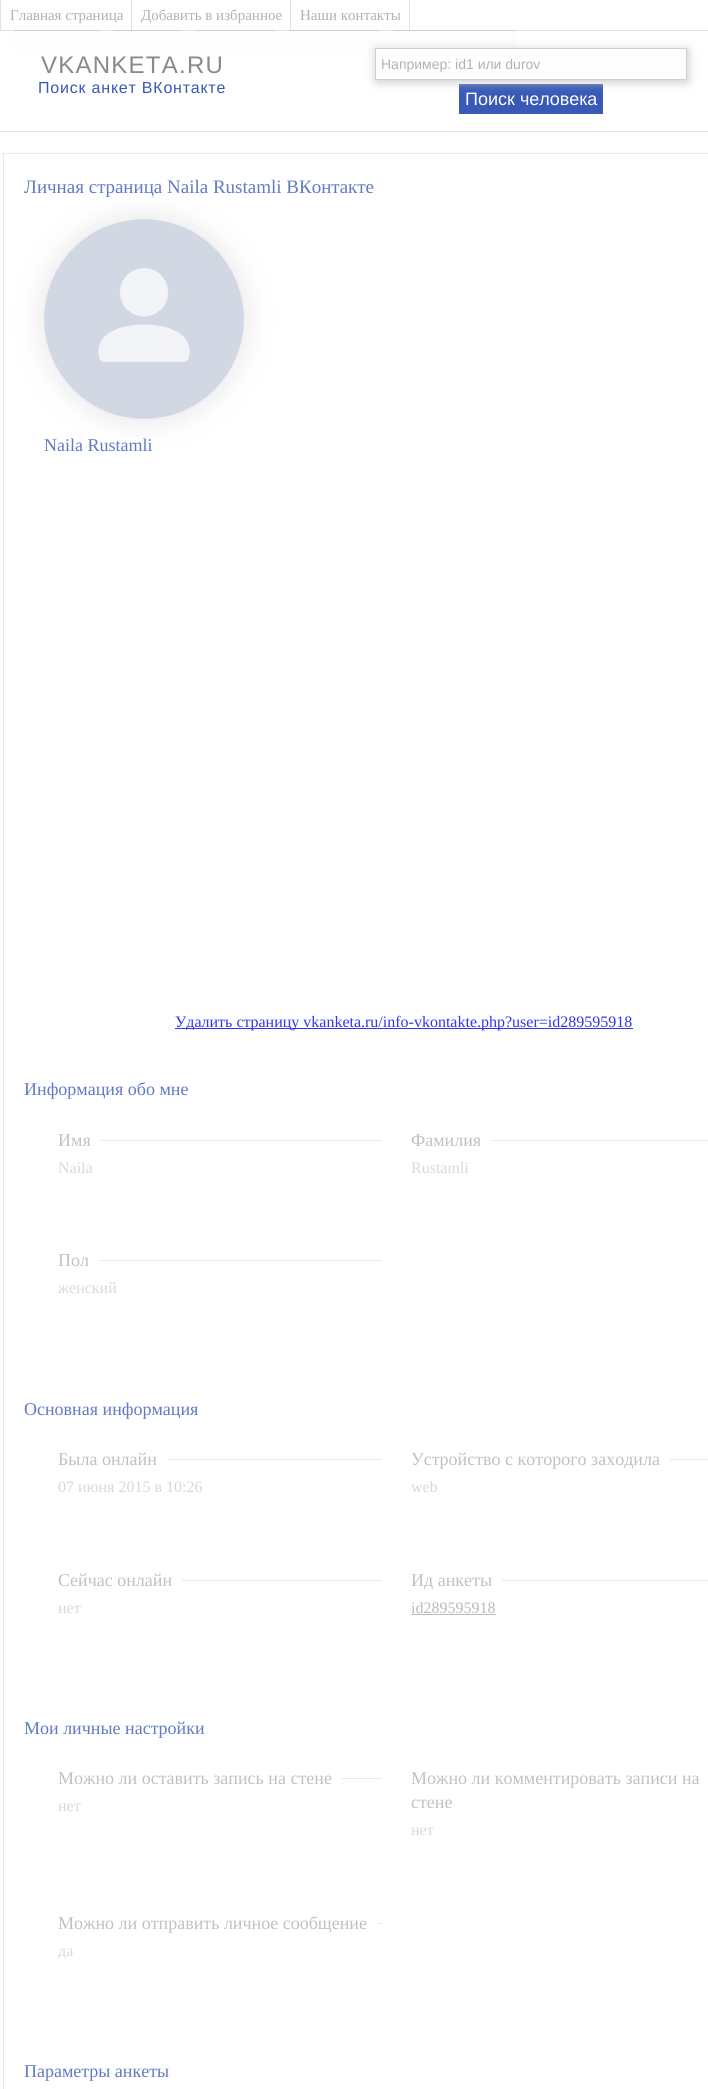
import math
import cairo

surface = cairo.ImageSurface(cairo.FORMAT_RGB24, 708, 2089)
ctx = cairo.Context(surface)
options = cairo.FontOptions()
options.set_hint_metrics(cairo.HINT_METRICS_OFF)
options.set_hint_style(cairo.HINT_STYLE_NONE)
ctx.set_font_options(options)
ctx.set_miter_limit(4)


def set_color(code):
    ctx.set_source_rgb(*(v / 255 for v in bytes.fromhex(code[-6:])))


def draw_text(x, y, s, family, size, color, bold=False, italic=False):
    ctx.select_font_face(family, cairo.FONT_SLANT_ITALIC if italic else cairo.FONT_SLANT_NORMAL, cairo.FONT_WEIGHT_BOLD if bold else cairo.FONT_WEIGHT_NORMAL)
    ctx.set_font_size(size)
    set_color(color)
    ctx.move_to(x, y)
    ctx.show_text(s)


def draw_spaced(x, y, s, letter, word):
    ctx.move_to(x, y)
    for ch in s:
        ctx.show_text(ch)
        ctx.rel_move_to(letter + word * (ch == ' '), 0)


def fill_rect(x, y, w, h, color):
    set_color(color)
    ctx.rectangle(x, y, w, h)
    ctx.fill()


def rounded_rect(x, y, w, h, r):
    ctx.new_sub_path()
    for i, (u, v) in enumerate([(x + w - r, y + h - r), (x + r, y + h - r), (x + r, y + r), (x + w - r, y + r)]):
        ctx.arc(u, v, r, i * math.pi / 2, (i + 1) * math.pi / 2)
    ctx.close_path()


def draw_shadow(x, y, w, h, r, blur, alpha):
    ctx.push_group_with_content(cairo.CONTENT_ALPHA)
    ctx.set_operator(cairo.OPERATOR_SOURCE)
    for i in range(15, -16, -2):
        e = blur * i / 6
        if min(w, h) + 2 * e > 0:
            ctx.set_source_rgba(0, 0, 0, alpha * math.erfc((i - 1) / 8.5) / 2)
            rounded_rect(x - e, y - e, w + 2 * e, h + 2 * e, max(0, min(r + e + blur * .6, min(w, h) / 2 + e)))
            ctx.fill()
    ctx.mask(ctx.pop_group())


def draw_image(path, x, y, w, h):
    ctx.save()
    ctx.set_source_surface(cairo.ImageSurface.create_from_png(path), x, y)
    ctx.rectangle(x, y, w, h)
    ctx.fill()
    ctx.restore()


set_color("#ffffff")
ctx.paint()
fill_rect(0, 30, 708, 1, "#e3e2e0")
fill_rect(0, 0, 1, 30, "#e3e2e0")
draw_text(10, 20, "Главная страница", "Liberation Serif", 15, "#b3b2b2")
fill_rect(131, 0, 1, 30, "#e3e2e0")
draw_text(141, 20, "Добавить в избранное", "Liberation Serif", 15, "#b3b2b2")
fill_rect(290, 0, 1, 30, "#e3e2e0")
draw_text(300, 20, "Наши контакты", "Liberation Serif", 15, "#b3b2b2")
fill_rect(409, 0, 1, 30, "#e3e2e0")
ctx.rectangle(14.5, 30.5, 84, 23)
set_color("#cccccc")
ctx.set_line_width(1)
ctx.stroke()
ctx.rectangle(114.5, 30.5, 66, 23)
ctx.stroke()
ctx.rectangle(197.5, 30.5, 76, 23)
ctx.stroke()
ctx.rectangle(290.5, 30.5, 87, 23)
ctx.stroke()
ctx.rectangle(394.5, 30.5, 120, 23)
ctx.stroke()
fill_rect(14, 31, 501, 23, "#fdfdfd")
fill_rect(0, 131, 708, 1, "#e3e2e0")
ctx.select_font_face("Liberation Sans")
ctx.set_font_size(24)
set_color("#8a8888")
draw_spaced(41, 73, "VKANKETA.RU", 1.25, 0)
ctx.set_font_size(16)
set_color("#3859b6")
draw_spaced(38, 93, "Поиск анкет ВКонтакте", 0.8, 0)
fill_rect(459, 84, 144, 30, "#3859b6")
set_color("#cbc9c9")
draw_shadow(376, 50, 312, 32, 0, 5, 1)
set_color("#fdfeff")
ctx.rectangle(375.5, 48.5, 311, 31)
ctx.fill_preserve()
set_color("#d0d0cf")
ctx.stroke()
draw_text(381, 69, "Например: id1 или durov", "Liberation Sans", 14, "#b3b2b2")
draw_text(465, 105, "Поиск человека", "Liberation Sans", 18, "#ffffff")
ctx.rectangle(3.5, 153.5, 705, 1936)
set_color("#e9e8e6")
ctx.stroke()
ctx.save()
ctx.set_fill_rule(cairo.FILL_RULE_EVEN_ODD)
ctx.new_path()
ctx.move_to(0, 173)
ctx.line_to(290, 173)
ctx.line_to(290, 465)
ctx.line_to(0, 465)
ctx.close_path()
ctx.move_to(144, 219)
ctx.curve_to(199, 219, 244, 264, 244, 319)
ctx.curve_to(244, 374, 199, 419, 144, 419)
ctx.curve_to(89, 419, 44, 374, 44, 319)
ctx.curve_to(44, 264, 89, 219, 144, 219)
ctx.close_path()
ctx.clip()
set_color("#e5e5e5")
draw_shadow(44, 219, 200, 200, 100, 15, 1)
ctx.restore()
draw_image("assets/img1.png", 44, 219, 200, 200)
draw_text(24, 193, "Личная страница Naila Rustamli ВКонтакте", "Liberation Serif", 19, "#607ac5")
draw_text(44, 451, "Naila Rustamli", "Liberation Serif", 18, "#607ac5")
fill_rect(175, 1028, 458, 1, "#3333f1")
draw_text(175, 1027, "Удалить страницу vkanketa.ru/info-vkontakte.php?user=id289595918", "Liberation Serif", 16, "#3333f1")
draw_text(24, 1095, "Информация обо мне", "Liberation Serif", 18, "#607ac5")
draw_text(58, 1146, "Имя", "Liberation Serif", 18, "#c2c1c1")
fill_rect(101, 1140, 281, 1, "#e8e8e8")
draw_text(58, 1173, "Naila", "Liberation Serif", 16, "#d9d8d8")
draw_text(411, 1146, "Фамилия", "Liberation Serif", 18, "#c2c1c1")
fill_rect(491, 1140, 217, 1, "#e8e8e8")
draw_text(411, 1173, "Rustamli", "Liberation Serif", 16, "#d9d8d8")
draw_text(58, 1266, "Пол", "Liberation Serif", 18, "#c2c1c1")
fill_rect(99, 1260, 283, 1, "#e8e8e8")
draw_text(58, 1293, "женский", "Liberation Serif", 16, "#d9d8d8")
draw_text(24, 1415, "Основная информация", "Liberation Serif", 18, "#607ac5")
draw_text(58, 1465, "Была онлайн", "Liberation Serif", 18, "#c2c1c1")
fill_rect(167, 1459, 215, 1, "#e8e8e8")
draw_text(58, 1492, "07 июня 2015 в 10:26", "Liberation Serif", 16, "#d9d8d8")
draw_text(411, 1465, "Устройство с которого заходила", "Liberation Serif", 18, "#c2c1c1")
fill_rect(670, 1459, 38, 1, "#e8e8e8")
draw_text(411, 1492, "web", "Liberation Serif", 16, "#d9d8d8")
draw_text(58, 1586, "Сейчас онлайн", "Liberation Serif", 18, "#c2c1c1")
fill_rect(182, 1580, 200, 1, "#e8e8e8")
draw_text(58, 1613, "нет", "Liberation Serif", 16, "#d9d8d8")
draw_text(411, 1586, "Ид анкеты", "Liberation Serif", 18, "#c2c1c1")
fill_rect(502, 1580, 206, 1, "#e8e8e8")
draw_text(411, 1613, "id289595918", "Liberation Serif", 16, "#bababa")
fill_rect(411, 1614, 85, 1, "#bababa")
draw_text(24, 1734, "Мои личные настройки", "Liberation Serif", 18, "#607ac5")
draw_text(58, 1784, "Можно ли оставить запись на стене", "Liberation Serif", 18, "#c2c1c1")
fill_rect(342, 1778, 40, 1, "#e8e8e8")
draw_text(58, 1811, "нет", "Liberation Serif", 16, "#d9d8d8")
draw_text(411, 1784, "Можно ли комментировать записи на", "Liberation Serif", 18, "#c2c1c1")
draw_text(411, 1808, "стене", "Liberation Serif", 18, "#c2c1c1")
draw_text(411, 1835, "нет", "Liberation Serif", 16, "#d9d8d8")
draw_text(58, 1929, "Можно ли отправить личное сообщение", "Liberation Serif", 18, "#c2c1c1")
fill_rect(377, 1923, 5, 1, "#e8e8e8")
draw_text(58, 1956, "да", "Liberation Serif", 16, "#d9d8d8")
draw_text(24, 2077, "Параметры анкеты", "Liberation Serif", 18, "#607ac5")
surface.write_to_png("output.png")
